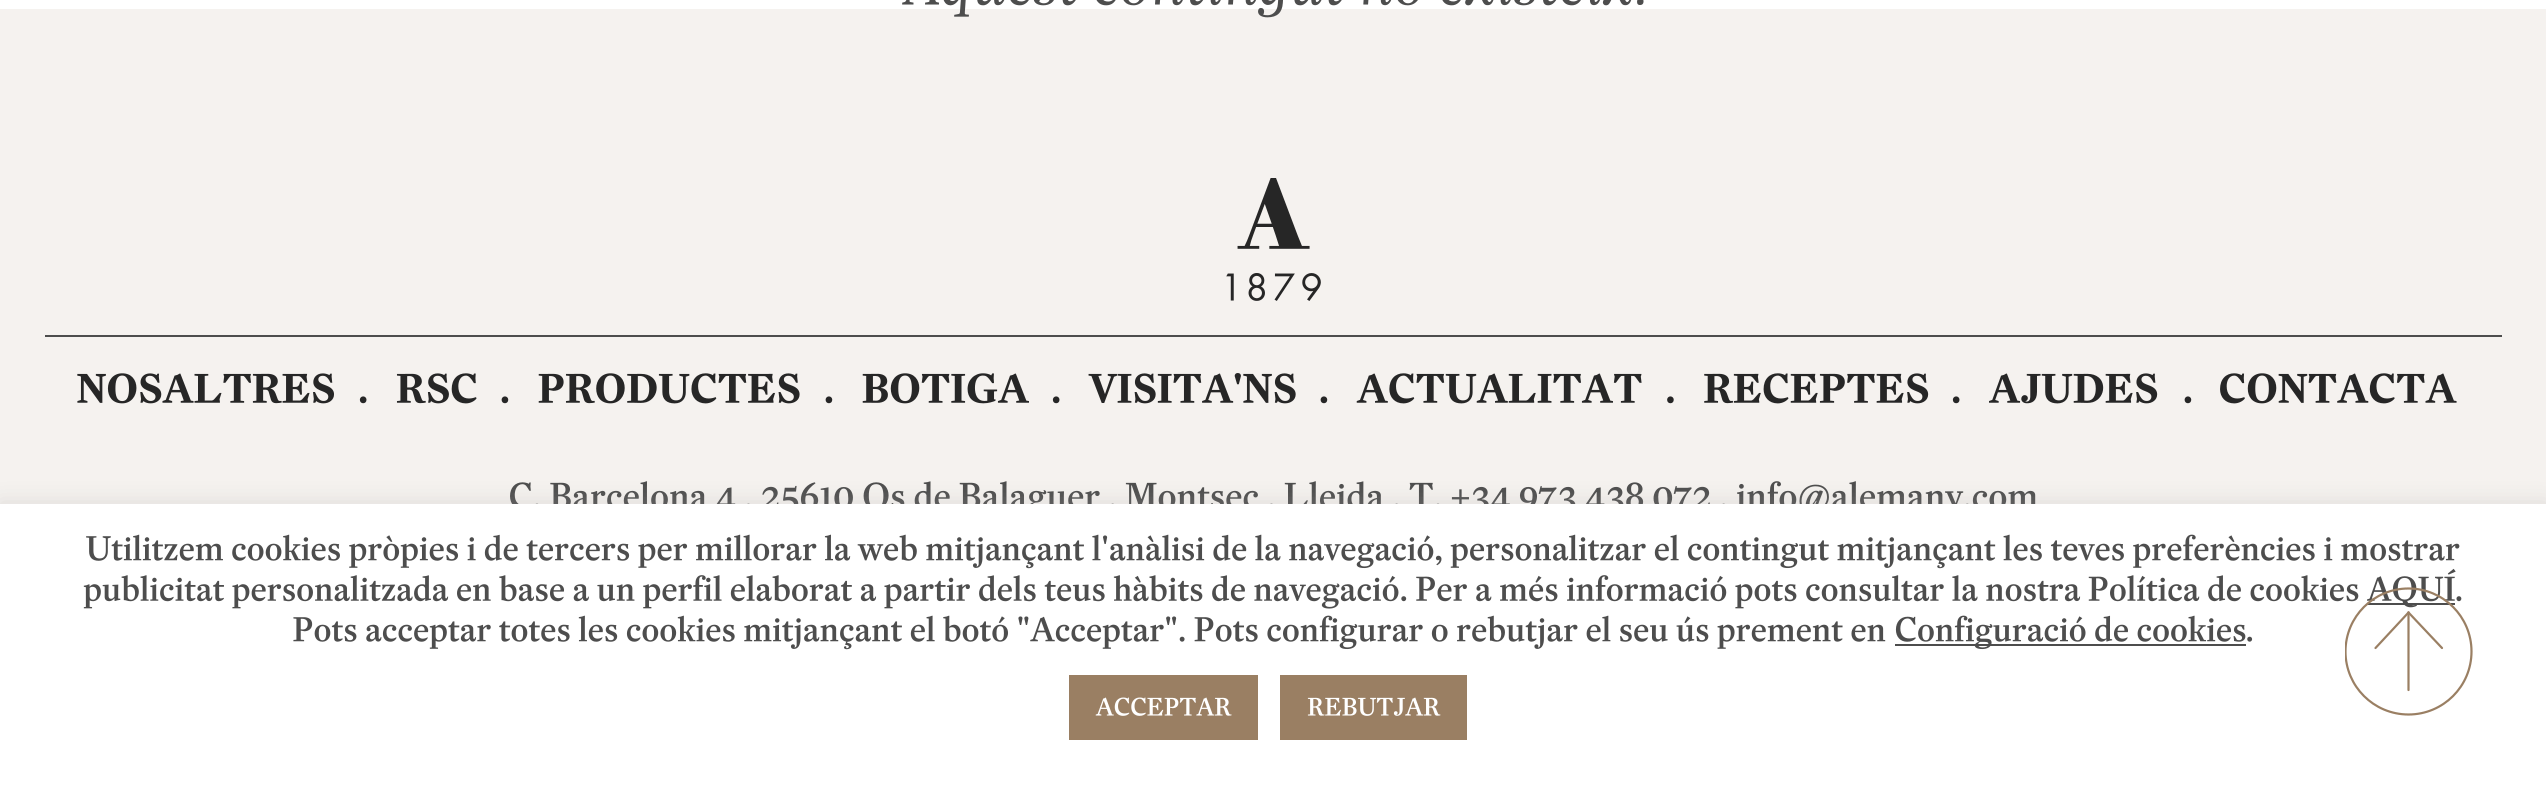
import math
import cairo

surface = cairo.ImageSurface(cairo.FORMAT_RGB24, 2546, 789)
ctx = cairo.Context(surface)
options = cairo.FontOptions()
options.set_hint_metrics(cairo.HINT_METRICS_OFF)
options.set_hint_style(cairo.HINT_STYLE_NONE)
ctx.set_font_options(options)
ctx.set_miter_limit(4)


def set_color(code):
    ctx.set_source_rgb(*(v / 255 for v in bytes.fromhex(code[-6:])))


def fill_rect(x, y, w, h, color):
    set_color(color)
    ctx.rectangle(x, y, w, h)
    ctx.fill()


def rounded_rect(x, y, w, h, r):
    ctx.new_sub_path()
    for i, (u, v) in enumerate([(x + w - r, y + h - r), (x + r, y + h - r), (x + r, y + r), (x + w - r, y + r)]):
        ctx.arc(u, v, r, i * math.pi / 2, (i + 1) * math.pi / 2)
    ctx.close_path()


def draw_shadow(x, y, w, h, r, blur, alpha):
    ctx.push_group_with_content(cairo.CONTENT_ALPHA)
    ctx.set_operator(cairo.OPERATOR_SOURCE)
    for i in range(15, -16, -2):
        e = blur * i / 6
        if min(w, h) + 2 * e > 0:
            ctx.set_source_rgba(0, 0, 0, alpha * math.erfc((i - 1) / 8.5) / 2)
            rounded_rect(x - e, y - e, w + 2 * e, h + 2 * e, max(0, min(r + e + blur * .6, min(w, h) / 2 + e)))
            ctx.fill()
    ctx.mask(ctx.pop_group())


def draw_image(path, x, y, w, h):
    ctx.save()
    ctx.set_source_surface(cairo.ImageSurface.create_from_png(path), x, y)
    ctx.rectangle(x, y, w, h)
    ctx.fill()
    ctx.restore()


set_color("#f5f2ef")
ctx.paint()
fill_rect(0, 0, 2546, 9, "#ffffff")
draw_image("assets/img1.png", 902, 0, 742, 18)
fill_rect(45, 335, 2457, 2, "#4d4d4d")
draw_image("assets/img2.png", 1226, 178, 95, 123)
draw_image("assets/img3.png", 77, 373, 257, 31)
draw_image("assets/img4.png", 359, 396, 8, 8)
draw_image("assets/img5.png", 396, 373, 81, 31)
draw_image("assets/img6.png", 501, 396, 8, 8)
draw_image("assets/img7.png", 538, 373, 262, 31)
draw_image("assets/img6.png", 825, 396, 8, 8)
draw_image("assets/img8.png", 862, 373, 167, 31)
draw_image("assets/img4.png", 1052, 396, 8, 8)
draw_image("assets/img9.png", 1088, 373, 208, 31)
draw_image("assets/img6.png", 1320, 396, 8, 8)
draw_image("assets/img10.png", 1356, 373, 286, 31)
draw_image("assets/img11.png", 1667, 396, 7, 8)
draw_image("assets/img12.png", 1704, 373, 225, 31)
draw_image("assets/img4.png", 1952, 396, 8, 8)
draw_image("assets/img13.png", 1989, 373, 169, 31)
draw_image("assets/img6.png", 2184, 396, 8, 8)
draw_image("assets/img14.png", 2220, 373, 237, 31)
draw_image("assets/img15.png", 510, 481, 1526, 23)
set_color("#acabab")
draw_shadow(0, 502, 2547, 286, 0, 11, 0.3)
fill_rect(0, 504, 2546, 285, "#ffffff")
draw_image("assets/img16.png", 86, 534, 2374, 35)
draw_image("assets/img17.png", 83, 575, 2276, 34)
fill_rect(2367, 603, 88, 2, "#4d4d4d")
draw_image("assets/img18.png", 2367, 568, 89, 40)
draw_image("assets/img19.png", 2456, 596, 6, 6)
draw_image("assets/img20.png", 293, 615, 1593, 35)
fill_rect(1895, 644, 351, 2, "#4d4d4d")
draw_image("assets/img21.png", 1895, 615, 351, 35)
draw_image("assets/img22.png", 2247, 636, 6, 6)
fill_rect(1069, 675, 189, 65, "#9a7f63")
draw_image("assets/img23.png", 1095, 697, 137, 19)
fill_rect(1280, 675, 187, 65, "#9a7f63")
draw_image("assets/img24.png", 1307, 697, 134, 19)
ctx.new_path()
ctx.move_to(2442, 648)
ctx.line_to(2408.5, 612.5)
ctx.set_line_width(2.2)
ctx.set_line_cap(cairo.LINE_CAP_ROUND)
ctx.set_line_join(cairo.LINE_JOIN_ROUND)
ctx.stroke()
ctx.new_path()
ctx.move_to(2375.5, 648)
ctx.line_to(2408.5, 612.5)
ctx.stroke()
ctx.new_path()
ctx.move_to(2408.5, 612.5)
ctx.line_to(2408.5, 690)
ctx.stroke()
ctx.save()
ctx.rectangle(2345, 587, 128, 129)
ctx.clip()
ctx.arc(2408.5, 651.5, 63, 0, 2 * math.pi)
ctx.set_line_cap(cairo.LINE_CAP_BUTT)
ctx.set_line_join(cairo.LINE_JOIN_MITER)
ctx.stroke()
ctx.restore()
surface.write_to_png("output.png")
